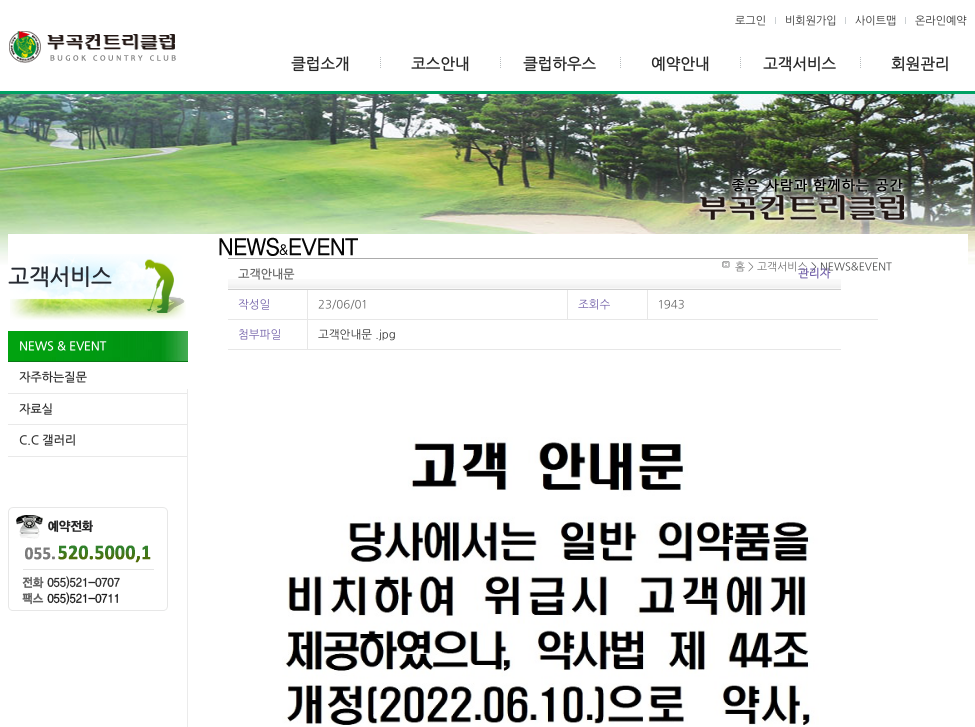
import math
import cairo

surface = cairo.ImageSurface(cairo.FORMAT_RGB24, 975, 727)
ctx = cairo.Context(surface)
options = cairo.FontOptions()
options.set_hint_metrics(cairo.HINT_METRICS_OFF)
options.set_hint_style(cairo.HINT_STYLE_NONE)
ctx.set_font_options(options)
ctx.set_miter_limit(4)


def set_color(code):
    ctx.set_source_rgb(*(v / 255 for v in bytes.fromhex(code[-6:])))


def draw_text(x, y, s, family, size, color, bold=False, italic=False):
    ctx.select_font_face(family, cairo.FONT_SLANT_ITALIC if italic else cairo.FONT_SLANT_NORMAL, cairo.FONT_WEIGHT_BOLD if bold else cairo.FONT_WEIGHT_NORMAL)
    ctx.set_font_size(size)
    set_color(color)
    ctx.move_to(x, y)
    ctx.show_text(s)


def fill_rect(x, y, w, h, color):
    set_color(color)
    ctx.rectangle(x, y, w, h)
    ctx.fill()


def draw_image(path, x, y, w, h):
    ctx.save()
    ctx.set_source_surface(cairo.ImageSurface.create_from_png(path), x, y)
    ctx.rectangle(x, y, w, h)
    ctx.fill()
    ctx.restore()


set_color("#ffffff")
ctx.paint()
draw_image("assets/img1.png", 0, 94, 975, 171)
draw_text(735, 24, "로그인", "NanumGothic", 11, "#333333")
fill_rect(775, 17, 1, 7, "#cbd0d3")
draw_text(785, 24, "비회원가입", "NanumGothic", 11, "#333333")
fill_rect(845, 17, 1, 7, "#cbd0d3")
draw_text(855, 24, "사이트맵", "NanumGothic", 11, "#333333")
fill_rect(905, 17, 1, 7, "#cbd0d3")
draw_text(915, 24, "온라인예약", "NanumGothic", 11, "#333333")
draw_image("assets/img3.png", 0, 43, 975, 51)
draw_image("assets/img2.png", 9, 31, 167, 32)
draw_text(291, 69, "클럽소개", "NanumGothic", 15.5, "#292929", bold=True)
draw_image("assets/img4.png", 380, 57, 1, 11)
draw_text(411, 69, "코스안내", "NanumGothic", 15.5, "#292929", bold=True)
draw_image("assets/img4.png", 500, 57, 1, 11)
draw_text(523, 69, "클럽하우스", "NanumGothic", 15.5, "#292929", bold=True)
draw_image("assets/img4.png", 620, 57, 1, 11)
draw_text(651, 69, "예약안내", "NanumGothic", 15.5, "#292929", bold=True)
draw_image("assets/img4.png", 740, 57, 1, 11)
draw_text(763, 69, "고객서비스", "NanumGothic", 15.5, "#292929", bold=True)
draw_image("assets/img4.png", 860, 57, 1, 11)
draw_text(891, 69, "회원관리", "NanumGothic", 15.5, "#292929", bold=True)
draw_image("assets/img5.png", 696, 175, 212, 49)
fill_rect(187, 389, 1, 338, "#ebebeb")
fill_rect(8, 234, 960, 31, "#ffffff")
draw_image("assets/img6.png", 10, 254, 176, 66)
draw_text(8, 284, "고객서비스", "NanumGothic", 22, "#262a32", bold=True)
draw_image("assets/img7.png", 8, 331, 180, 30)
fill_rect(8, 361, 180, 1, "#087915")
draw_text(19, 350, "NEWS & EVENT", "NanumGothic", 12, "#ffffff", bold=True)
fill_rect(8, 393, 179, 1, "#e9e9e9")
draw_text(19, 381, "자주하는질문", "NanumGothic", 12, "#333333", bold=True)
fill_rect(8, 424, 179, 1, "#e9e9e9")
draw_text(19, 413, "자료실", "NanumGothic", 12, "#333333", bold=True)
fill_rect(8, 456, 179, 1, "#e9e9e9")
draw_text(19, 444, "C.C 갤러리", "NanumGothic", 12, "#333333", bold=True)
draw_image("assets/img8.png", 8, 507, 160, 104)
draw_image("assets/img9.png", 219, 237, 139, 19)
draw_image("assets/img10.png", 722, 261, 8, 7)
draw_text(735, 270, "홈 > 고객서비스", "NanumGothic", 10.75, "#747474")
draw_text(811, 270, "> NEWS&EVENT", "NanumGothic", 10.75, "#454646")
fill_rect(228, 258, 650, 1, "#ababab")
draw_image("assets/img11.png", 228, 279, 420, 10)
fill_rect(228, 289, 613, 1, "#cfcfcf")
draw_text(238, 278, "고객안내문", "NanumGothic", 12, "#666666", bold=True)
draw_image("assets/img12.png", 648, 279, 193, 10)
draw_text(798, 277, "관리자", "NanumGothic", 11.5, "#7361a9", bold=True)
fill_rect(307, 290, 1, 60, "#e7e7e7")
fill_rect(228, 319, 80, 1, "#e7e7e7")
draw_text(238, 308, "작성일", "NanumGothic", 11.5, "#7361a9")
fill_rect(567, 290, 1, 30, "#e7e7e7")
fill_rect(308, 319, 260, 1, "#e7e7e7")
draw_text(318, 308, "23/06/01", "NanumGothic", 11.5, "#666666")
fill_rect(647, 290, 1, 30, "#e7e7e7")
fill_rect(568, 319, 310, 1, "#e7e7e7")
draw_text(578, 308, "조회수", "NanumGothic", 11.5, "#7361a9")
draw_text(658, 308, "1943", "NanumGothic", 11.5, "#666666")
fill_rect(228, 349, 613, 1, "#e7e7e7")
draw_text(238, 338, "첨부파일", "NanumGothic", 11.5, "#7361a9")
draw_text(318, 338, "고객안내문 .jpg", "NanumGothic", 11.5, "#333333")
draw_image("assets/img13.png", 282, 437, 537, 290)
surface.write_to_png("output.png")
